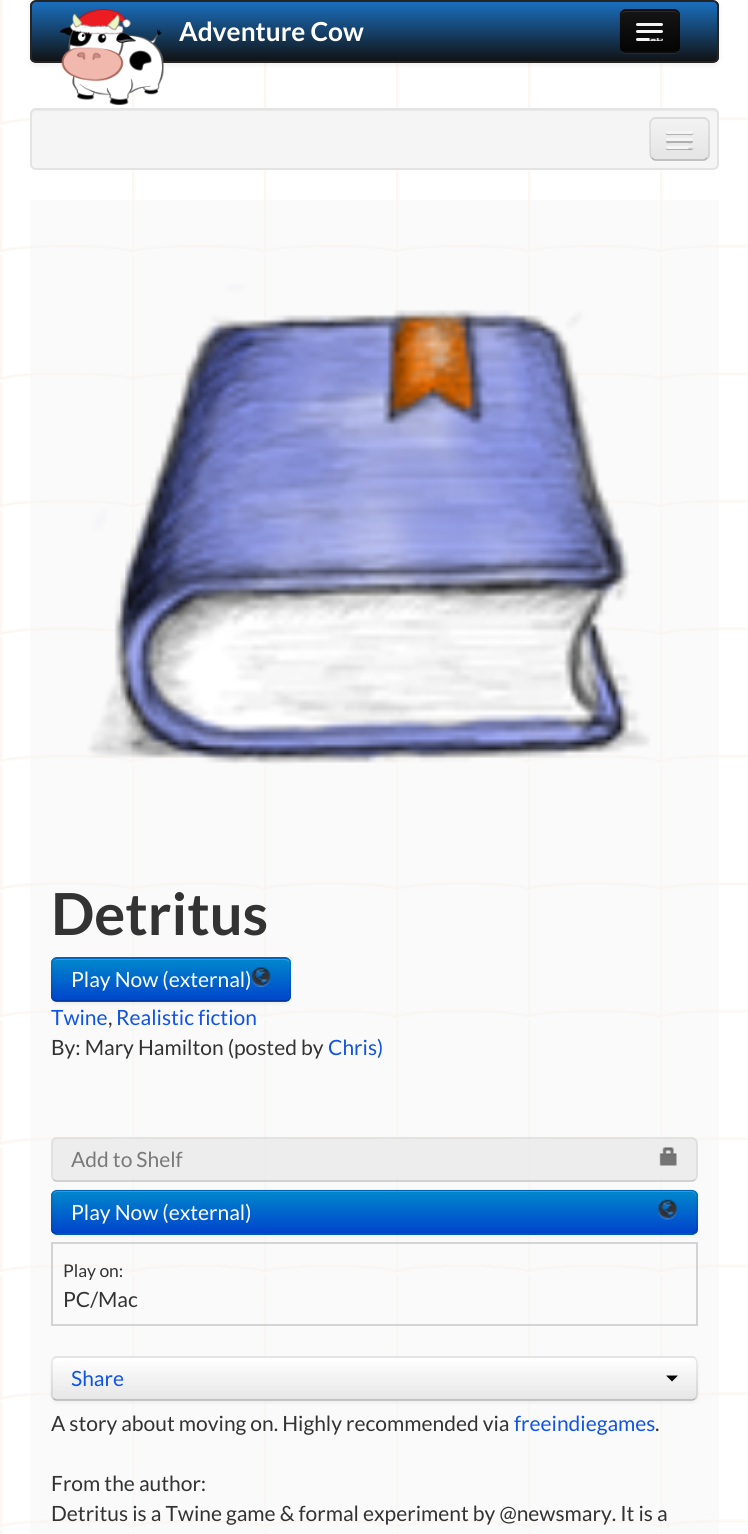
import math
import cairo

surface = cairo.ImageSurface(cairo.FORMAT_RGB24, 748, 1534)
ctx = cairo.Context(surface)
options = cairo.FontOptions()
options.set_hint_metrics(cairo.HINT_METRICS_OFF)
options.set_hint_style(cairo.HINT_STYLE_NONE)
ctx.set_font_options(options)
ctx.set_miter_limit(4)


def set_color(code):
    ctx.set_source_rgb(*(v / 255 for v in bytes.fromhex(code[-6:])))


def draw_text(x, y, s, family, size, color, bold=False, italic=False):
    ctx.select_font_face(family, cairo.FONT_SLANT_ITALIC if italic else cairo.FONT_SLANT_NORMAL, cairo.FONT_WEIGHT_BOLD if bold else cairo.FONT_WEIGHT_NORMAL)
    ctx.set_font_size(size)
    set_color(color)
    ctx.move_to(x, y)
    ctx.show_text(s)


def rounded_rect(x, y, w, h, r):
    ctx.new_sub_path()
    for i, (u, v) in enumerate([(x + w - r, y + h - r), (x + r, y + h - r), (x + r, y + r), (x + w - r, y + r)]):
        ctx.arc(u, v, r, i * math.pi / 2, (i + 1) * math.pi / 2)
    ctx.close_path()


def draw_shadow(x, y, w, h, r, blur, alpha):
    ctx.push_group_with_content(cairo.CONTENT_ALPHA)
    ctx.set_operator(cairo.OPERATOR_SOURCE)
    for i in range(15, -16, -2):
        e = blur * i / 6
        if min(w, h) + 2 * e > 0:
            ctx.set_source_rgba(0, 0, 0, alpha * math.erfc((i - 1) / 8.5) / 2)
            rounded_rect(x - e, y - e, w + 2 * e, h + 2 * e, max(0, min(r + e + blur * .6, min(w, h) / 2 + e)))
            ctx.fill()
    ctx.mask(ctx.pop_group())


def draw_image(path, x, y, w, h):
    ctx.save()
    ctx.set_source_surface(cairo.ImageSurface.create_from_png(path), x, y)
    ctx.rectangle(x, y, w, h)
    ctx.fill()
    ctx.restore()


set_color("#ffffff")
ctx.paint()
draw_image("assets/img1.png", 0, 0, 748, 1534)
set_color("#000000")
draw_shadow(30, 2, 689, 63, 6, 3, 0.07)
ctx.save()
rounded_rect(30, 0, 689, 63, 6)
ctx.clip()
gradient = cairo.LinearGradient(374, 1.5, 374, 62)
gradient.add_color_stop_rgba(0, 0.102, 0.439, 0.753, 1)
gradient.add_color_stop_rgba(1, 0.067, 0.067, 0.067, 1)
ctx.set_source(gradient)
ctx.rectangle(30, 2, 689, 60)
ctx.fill()
ctx.restore()
rounded_rect(31, 1, 687, 61, 5)
set_color("#252525")
ctx.stroke()
draw_image("assets/img2.png", 60, 9, 104, 96)
draw_text(179, 41, "Adventure Cow", "Lato", 26.25, "#ffffff", bold=True)
ctx.set_source_rgba(1, 1, 1, 0.07)
ctx.new_path()
ctx.move_to(620, 49)
ctx.curve_to(621, 52, 623, 54, 626, 54)
ctx.line_to(674, 54)
ctx.curve_to(677, 54, 680, 51, 680, 48)
ctx.line_to(680, 17)
ctx.line_to(679, 15)
ctx.line_to(680, 41)
ctx.curve_to(680, 53, 677, 52, 666, 52)
ctx.line_to(634, 52)
ctx.curve_to(629, 52, 622, 54, 620, 49)
ctx.close_path()
ctx.fill()
set_color("#0e0e0e")
rounded_rect(620, 9, 60, 44, 6)
ctx.fill()
ctx.save()
rounded_rect(620, 9, 60, 44, 6)
ctx.clip()
gradient = cairo.LinearGradient(650, 10, 650, 51)
gradient.add_color_stop_rgba(0, 0.082, 0.082, 0.082, 1)
gradient.add_color_stop_rgba(1, 0.016, 0.016, 0.016, 1)
ctx.set_source(gradient)
ctx.rectangle(620, 11, 60, 40)
ctx.fill()
ctx.restore()
set_color("#2c2c2c")
ctx.new_path()
ctx.move_to(626, 12)
ctx.line_to(674, 12)
ctx.curve_to(676, 12, 678, 14, 678, 16)
ctx.curve_to(678, 13, 676, 11, 673, 11)
ctx.line_to(626, 11)
ctx.curve_to(623, 11, 621, 13, 621, 16)
ctx.curve_to(621, 14, 623, 12, 626, 12)
ctx.close_path()
ctx.fill()
ctx.new_path()
ctx.move_to(677, 50)
ctx.curve_to(676, 51, 675, 52, 673.5, 52)
ctx.line_to(625.5, 52)
ctx.curve_to(624, 52, 623, 51, 622, 50)
ctx.set_source_rgba(0, 0, 0, 0.25)
ctx.set_line_width(1.5)
ctx.stroke()
ctx.new_path()
ctx.move_to(622, 50)
ctx.curve_to(621, 49, 620, 48, 620, 46.5)
ctx.line_to(620, 15)
ctx.curve_to(620, 13.5, 621, 12.5, 622, 11.5)
ctx.curve_to(623, 10.5, 624, 10, 625.5, 10)
ctx.line_to(673.5, 10)
ctx.curve_to(675, 10, 676, 10.5, 677, 11.5)
ctx.curve_to(678, 12.5, 679, 13.5, 679, 15)
ctx.line_to(679, 46.5)
ctx.curve_to(679, 48, 678, 49, 677, 50)
ctx.set_source_rgba(0, 0, 0, 0.1)
ctx.stroke()
set_color("#0b0b0b")
ctx.new_path()
ctx.move_to(636, 24.5)
ctx.curve_to(634.5, 28, 641.5, 27, 641.5, 27)
ctx.line_to(657.5, 27)
ctx.curve_to(657.5, 27, 664.5, 28, 663, 24.5)
ctx.curve_to(662.5, 25, 662, 25.5, 661.5, 25.5)
ctx.line_to(637.5, 25.5)
ctx.curve_to(637, 25.5, 636.5, 25, 636, 24.5)
ctx.close_path()
ctx.fill()
set_color("#f5f5f5")
rounded_rect(636, 23, 27, 3, 1.5)
ctx.fill()
set_color("#080808")
ctx.new_path()
ctx.move_to(636.5, 32.5)
ctx.line_to(636, 34)
ctx.curve_to(636.5, 36, 641, 35, 641.5, 35)
ctx.line_to(657.5, 35)
ctx.curve_to(658, 35, 662.5, 36, 663, 34)
ctx.line_to(662.5, 32.5)
ctx.line_to(661.5, 33)
ctx.line_to(637.5, 33)
ctx.close_path()
ctx.fill()
set_color("#f5f5f5")
rounded_rect(636, 30, 27, 3, 1.5)
ctx.fill()
rounded_rect(636, 38, 27, 3, 1.5)
ctx.fill()
draw_image("assets/img3.png", 649, 38, 14, 3)
rounded_rect(30, 108, 689, 62, 6)
ctx.fill()
set_color("#e9e9e9")
ctx.new_path()
ctx.move_to(36, 111)
ctx.line_to(712, 111)
ctx.curve_to(715, 111, 717, 113, 717, 116)
ctx.line_to(717, 115)
ctx.curve_to(717, 112, 715, 110, 712, 110)
ctx.line_to(37, 110)
ctx.curve_to(34, 110, 32, 112, 32, 115)
ctx.line_to(32, 116)
ctx.curve_to(32, 113, 34, 111, 36, 111)
ctx.close_path()
ctx.fill()
rounded_rect(31, 109, 687, 60, 5)
set_color("#e3e3e3")
ctx.set_line_width(2)
ctx.stroke()
set_color("#ededed")
rounded_rect(650, 117, 60, 44, 6)
ctx.fill()
ctx.save()
rounded_rect(650, 117, 60, 44, 6)
ctx.clip()
gradient = cairo.LinearGradient(680, 119, 680, 159)
gradient.add_color_stop_rgba(0, 0.949, 0.949, 0.949, 1)
gradient.add_color_stop_rgba(1, 0.898, 0.898, 0.898, 1)
ctx.set_source(gradient)
ctx.rectangle(650, 119, 60, 40)
ctx.fill()
ctx.restore()
ctx.new_path()
ctx.move_to(707, 158)
ctx.curve_to(706, 159, 705, 160, 703.5, 160)
ctx.line_to(655.5, 160)
ctx.curve_to(654, 160, 653, 159, 652, 158)
ctx.set_source_rgba(0, 0, 0, 0.25)
ctx.set_line_width(1.5)
ctx.stroke()
ctx.new_path()
ctx.move_to(652, 158)
ctx.curve_to(651, 157, 650, 156, 650, 154.5)
ctx.line_to(650, 123)
ctx.curve_to(650, 121.5, 651, 120.5, 652, 119.5)
ctx.curve_to(653, 118.5, 654, 118, 655.5, 118)
ctx.line_to(703.5, 118)
ctx.curve_to(705, 118, 706, 118.5, 707, 119.5)
ctx.curve_to(708, 120.5, 709, 121.5, 709, 123)
ctx.line_to(709, 154.5)
ctx.curve_to(709, 156, 708, 157, 707, 158)
ctx.set_source_rgba(0, 0, 0, 0.1)
ctx.stroke()
set_color("#b2b2b2")
ctx.new_path()
ctx.move_to(666, 133)
ctx.curve_to(664.5, 136, 671.5, 135, 671.5, 135)
ctx.line_to(687.5, 135)
ctx.curve_to(687.5, 135, 694.5, 136, 693, 133)
ctx.curve_to(692.5, 133, 692, 133.5, 691.5, 133.5)
ctx.line_to(667.5, 133.5)
ctx.curve_to(667, 133.5, 666.5, 133, 666, 133)
ctx.close_path()
ctx.fill()
set_color("#f5f5f5")
rounded_rect(666, 131, 27, 3, 1.5)
ctx.fill()
set_color("#b0b0b0")
ctx.new_path()
ctx.move_to(666.5, 140.5)
ctx.line_to(666, 142)
ctx.curve_to(666.5, 144, 671, 143, 671.5, 143)
ctx.line_to(687.5, 143)
ctx.curve_to(688, 143, 692.5, 144, 693, 142)
ctx.line_to(692.5, 140.5)
ctx.line_to(691.5, 141)
ctx.line_to(667.5, 141)
ctx.close_path()
ctx.fill()
set_color("#f5f5f5")
rounded_rect(666, 138, 27, 3, 1.5)
ctx.fill()
set_color("#aeaeae")
ctx.new_path()
ctx.move_to(666, 148)
ctx.curve_to(664.5, 151, 671.5, 150, 671.5, 150)
ctx.line_to(687.5, 150)
ctx.curve_to(687.5, 150, 694.5, 151, 693, 148)
ctx.curve_to(692.5, 148, 692, 148.5, 691.5, 148.5)
ctx.line_to(667.5, 148.5)
ctx.curve_to(667, 148.5, 666.5, 148, 666, 148)
ctx.close_path()
ctx.fill()
set_color("#f5f5f5")
rounded_rect(666, 146, 27, 3, 1.5)
ctx.fill()
draw_image("assets/img4.png", 688, 147, 5, 2)
ctx.set_source_rgba(0.961, 0.961, 0.961, 0.5)
ctx.rectangle(30, 200, 689, 1334)
ctx.fill()
draw_image("assets/img5.png", 87, 284, 563, 481)
draw_text(51, 935, "Detritus", "Lato", 58, "#333333", bold=True)
set_color("#000000")
draw_shadow(51, 959, 240, 45, 6, 1.5, 0.05)
set_color("#006dcc")
rounded_rect(51, 957, 240, 45, 6)
ctx.fill()
ctx.save()
rounded_rect(51, 957, 240, 45, 6)
ctx.clip()
gradient = cairo.LinearGradient(171, 959, 171, 1001)
gradient.add_color_stop_rgba(0, 0, 0.533, 0.8, 1)
gradient.add_color_stop_rgba(1, 0, 0.267, 0.8, 1)
ctx.set_source(gradient)
ctx.rectangle(51, 959, 240, 42)
ctx.fill()
ctx.restore()
set_color("#339fd6")
ctx.new_path()
ctx.move_to(57, 960)
ctx.line_to(285, 960)
ctx.curve_to(287, 960, 290, 962, 290, 964)
ctx.curve_to(290, 961, 288, 959, 285, 959)
ctx.line_to(58, 959)
ctx.curve_to(56, 959, 55, 960, 54, 961)
ctx.close_path()
ctx.fill()
ctx.new_path()
ctx.move_to(288.5, 999.5)
ctx.curve_to(287.5, 1000.5, 286.5, 1001, 285, 1001)
ctx.line_to(57, 1001)
ctx.curve_to(55.5, 1001, 54.5, 1000.5, 53.5, 999.5)
ctx.set_source_rgba(0, 0, 0, 0.25)
ctx.stroke()
ctx.new_path()
ctx.move_to(53.5, 999.5)
ctx.curve_to(52.5, 998.5, 52, 997.5, 52, 996)
ctx.line_to(52, 963)
ctx.curve_to(52, 961.5, 52.5, 960.5, 53.5, 959.5)
ctx.curve_to(54.5, 958.5, 55.5, 958, 57, 958)
ctx.line_to(285, 958)
ctx.curve_to(286.5, 958, 287.5, 958.5, 288.5, 959.5)
ctx.curve_to(289.5, 960.5, 290, 961.5, 290, 963)
ctx.line_to(290, 996)
ctx.curve_to(290, 997.5, 289.5, 998.5, 288.5, 999.5)
ctx.set_source_rgba(0, 0, 0, 0.1)
ctx.stroke()
draw_text(71, 987, "Play Now (external)", "Lato", 21, "#ffffff")
draw_image("assets/img6.png", 251, 967, 20, 20)
draw_text(51, 1025, "Twine", "Lato", 21, "#0f54e7")
draw_text(108, 1025, ",", "Lato", 21, "#333333")
draw_text(116, 1025, "Realistic fiction", "Lato", 21, "#0f54e7")
draw_text(51, 1055, "By: Mary Hamilton (posted by", "Lato", 21, "#333333")
draw_text(328, 1055, "Chris)", "Lato", 21, "#0f54e7")
ctx.set_source_rgba(0.902, 0.902, 0.902, 0.65)
rounded_rect(51, 1137, 647, 45, 6)
ctx.fill()
ctx.new_path()
ctx.move_to(695, 1179.5)
ctx.curve_to(694, 1180.5, 693, 1181, 691.5, 1181)
ctx.line_to(57, 1181)
ctx.curve_to(55.5, 1181, 54.5, 1180.5, 53.5, 1179.5)
ctx.set_source_rgba(0.702, 0.702, 0.702, 0.65)
ctx.stroke()
ctx.new_path()
ctx.move_to(53.5, 1179.5)
ctx.curve_to(51, 1177.5, 52, 1173.5, 52, 1170.5)
ctx.line_to(52, 1148.5)
ctx.curve_to(52, 1144.5, 51, 1139, 56, 1138)
ctx.line_to(692.5, 1138)
ctx.curve_to(697.5, 1139, 697, 1144.5, 697, 1148.5)
ctx.line_to(697, 1170.5)
ctx.curve_to(697, 1173.5, 697.5, 1177.5, 695, 1179.5)
ctx.set_source_rgba(0, 0, 0, 0.07)
ctx.stroke()
draw_text(71, 1167, "Add to Shelf", "Lato", 21, "#797979")
draw_image("assets/img7.png", 659, 1147, 18, 19)
set_color("#000000")
draw_shadow(51, 1191, 647, 45, 6, 1.5, 0.05)
set_color("#006dcc")
rounded_rect(51, 1190, 647, 45, 6)
ctx.fill()
ctx.save()
rounded_rect(51, 1190, 647, 45, 6)
ctx.clip()
gradient = cairo.LinearGradient(374, 1191, 374, 1233)
gradient.add_color_stop_rgba(0, 0, 0.533, 0.8, 1)
gradient.add_color_stop_rgba(1, 0, 0.267, 0.8, 1)
ctx.set_source(gradient)
ctx.rectangle(51, 1191, 647, 42)
ctx.fill()
ctx.restore()
ctx.set_source_rgba(1, 1, 1, 0.2)
ctx.new_path()
ctx.move_to(57, 1192)
ctx.line_to(692, 1192)
ctx.curve_to(694, 1192, 696, 1195, 696, 1197)
ctx.line_to(696, 1196)
ctx.curve_to(696, 1193, 694, 1191, 691, 1191)
ctx.line_to(58, 1191)
ctx.curve_to(56, 1191, 54, 1192, 53, 1194)
ctx.curve_to(54, 1193, 56, 1192, 57, 1192)
ctx.close_path()
ctx.fill()
ctx.new_path()
ctx.move_to(695, 1232)
ctx.curve_to(694, 1233, 693, 1234, 691.5, 1234)
ctx.line_to(57, 1234)
ctx.curve_to(55.5, 1234, 54.5, 1233, 53.5, 1232)
ctx.set_source_rgba(0, 0, 0, 0.25)
ctx.stroke()
ctx.new_path()
ctx.move_to(53.5, 1232)
ctx.curve_to(51, 1230, 52, 1226, 52, 1223)
ctx.line_to(52, 1201)
ctx.curve_to(52, 1197, 51, 1191.5, 56, 1190.5)
ctx.line_to(692.5, 1190.5)
ctx.curve_to(697.5, 1191.5, 697, 1197, 697, 1201)
ctx.line_to(697, 1223)
ctx.curve_to(697, 1226, 697.5, 1230, 695, 1232)
ctx.set_source_rgba(0, 0, 0, 0.1)
ctx.stroke()
draw_text(71, 1220, "Play Now (external)", "Lato", 21, "#ffffff")
draw_image("assets/img8.png", 658, 1199, 19, 21)
ctx.rectangle(52, 1243, 645, 82)
set_color("#d3d3d3")
ctx.set_line_width(2)
ctx.stroke()
draw_text(63, 1277, "Play on:", "Lato", 17.5, "#333333")
draw_text(63, 1307, "PC/Mac", "Lato", 21, "#333333")
set_color("#000000")
draw_shadow(51, 1358, 647, 45, 6, 1.5, 0.05)
set_color("#f5f5f5")
rounded_rect(51, 1356, 647, 45, 6)
ctx.fill()
ctx.save()
rounded_rect(51, 1356, 647, 45, 6)
ctx.clip()
gradient = cairo.LinearGradient(374, 1358, 374, 1400)
gradient.add_color_stop_rgba(0, 1, 1, 1, 1)
gradient.add_color_stop_rgba(1, 0.902, 0.902, 0.902, 1)
ctx.set_source(gradient)
ctx.rectangle(51, 1358, 647, 42)
ctx.fill()
ctx.restore()
ctx.new_path()
ctx.move_to(695, 1398.5)
ctx.curve_to(694, 1399.5, 693, 1400, 691.5, 1400)
ctx.line_to(57, 1400)
ctx.curve_to(55.5, 1400, 54.5, 1399.5, 53.5, 1398.5)
set_color("#b3b3b3")
ctx.set_line_width(1.5)
ctx.stroke()
ctx.new_path()
ctx.move_to(53.5, 1398.5)
ctx.curve_to(51, 1396.5, 52, 1392.5, 52, 1389.5)
ctx.line_to(52, 1367.5)
ctx.curve_to(52, 1363.5, 51, 1358, 56, 1357)
ctx.line_to(692.5, 1357)
ctx.curve_to(697.5, 1358, 697, 1363.5, 697, 1367.5)
ctx.line_to(697, 1389.5)
ctx.curve_to(697, 1392.5, 697.5, 1396.5, 695, 1398.5)
ctx.set_source_rgba(0, 0, 0, 0.1)
ctx.stroke()
draw_text(71, 1386, "Share", "Lato", 21, "#0f54e7")
set_color("#000000")
ctx.new_path()
ctx.move_to(666, 1375.5)
ctx.line_to(678, 1375.5)
ctx.line_to(672, 1381.5)
ctx.close_path()
ctx.fill()
draw_text(51, 1431, "A story about moving on. Highly recommended via", "Lato", 21, "#333333")
draw_text(514, 1431, "freeindiegames", "Lato", 21, "#0f54e7")
draw_text(655, 1431, ".", "Lato", 21, "#333333")
draw_text(51, 1491, "From the author:", "Lato", 21, "#333333")
draw_text(51, 1521, "Detritus is a Twine game & formal experiment by @newsmary. It is a", "Lato", 21, "#333333")
surface.write_to_png("output.png")
